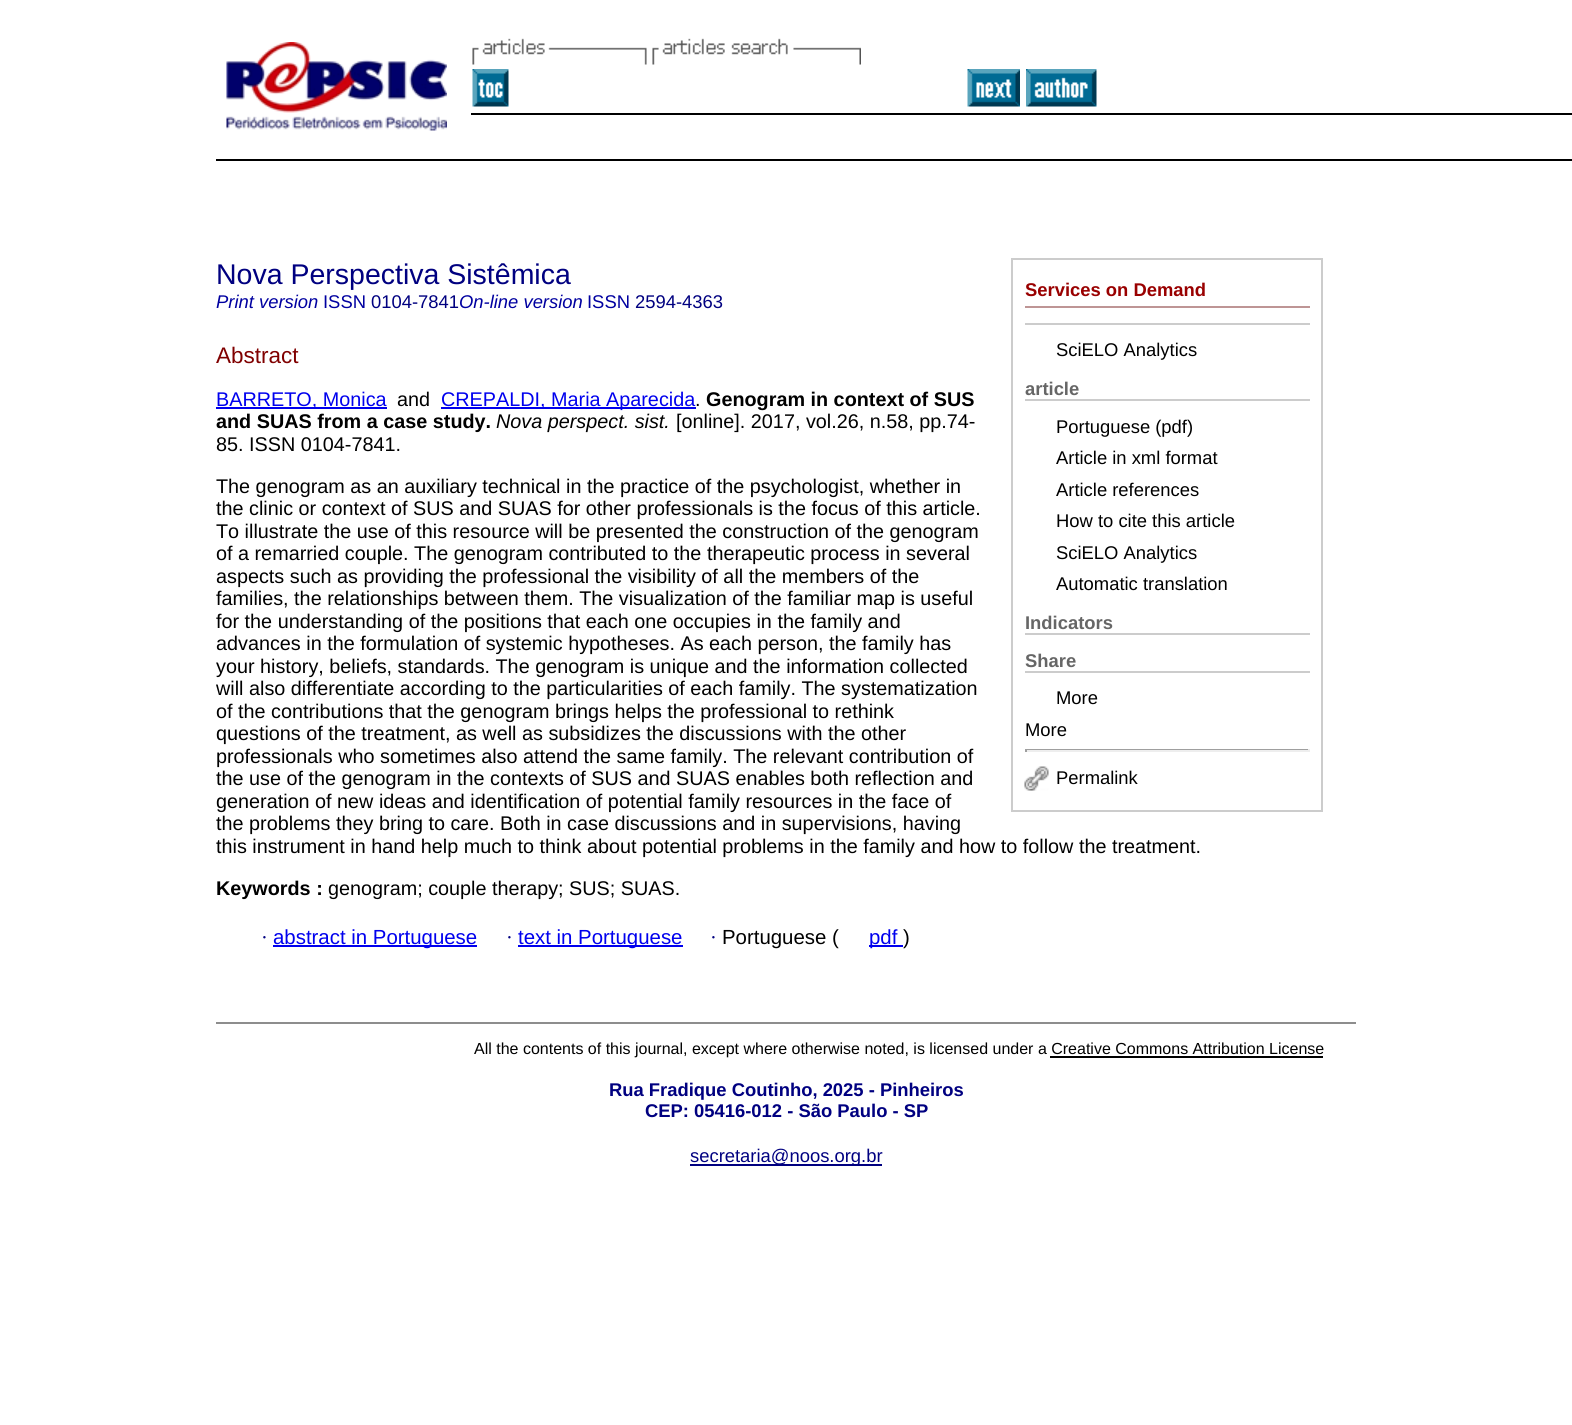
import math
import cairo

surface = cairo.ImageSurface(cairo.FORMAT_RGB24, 1572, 1425)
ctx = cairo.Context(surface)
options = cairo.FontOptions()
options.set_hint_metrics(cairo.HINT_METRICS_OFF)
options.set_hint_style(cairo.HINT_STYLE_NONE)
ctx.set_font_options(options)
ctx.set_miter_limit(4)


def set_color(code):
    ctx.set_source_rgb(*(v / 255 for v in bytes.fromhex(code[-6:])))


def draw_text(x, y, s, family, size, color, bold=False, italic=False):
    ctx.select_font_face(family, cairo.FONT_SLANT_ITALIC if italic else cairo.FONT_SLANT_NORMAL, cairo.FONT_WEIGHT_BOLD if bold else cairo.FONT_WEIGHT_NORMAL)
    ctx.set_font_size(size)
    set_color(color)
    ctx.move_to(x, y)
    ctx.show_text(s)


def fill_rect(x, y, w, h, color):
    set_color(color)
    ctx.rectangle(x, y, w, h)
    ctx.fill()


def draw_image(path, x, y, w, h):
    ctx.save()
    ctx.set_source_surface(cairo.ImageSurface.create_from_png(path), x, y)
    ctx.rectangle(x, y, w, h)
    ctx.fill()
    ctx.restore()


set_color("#ffffff")
ctx.paint()
fill_rect(216, 159, 1356, 2, "#000000")
draw_image("assets/img1.png", 226, 42, 221, 89)
fill_rect(471, 113, 1101, 2, "#000000")
draw_image("assets/img2.png", 472, 38, 175, 27)
draw_image("assets/img3.png", 652, 38, 209, 27)
draw_image("assets/img4.png", 472, 69, 37, 38)
draw_image("assets/img5.png", 967, 69, 53, 38)
draw_image("assets/img6.png", 1026, 69, 71, 38)
fill_rect(216, 1022, 1140, 2, "#8d8d8d")
draw_text(216, 284, "Nova Perspectiva Sistêmica", "Liberation Sans", 28.5, "#000080")
draw_text(216, 308, "Print version", "Liberation Sans", 18.4, "#0000a0", italic=True)
draw_text(323, 308, "ISSN", "Liberation Sans", 18.4, "#0000a0")
draw_text(371, 308, "0104-7841", "Liberation Sans", 18.4, "#000080")
draw_text(459, 308, "On-line version", "Liberation Sans", 18.4, "#0000a0", italic=True)
draw_text(587, 308, "ISSN", "Liberation Sans", 18.4, "#0000a0")
draw_text(635, 308, "2594-4363", "Liberation Sans", 18.4, "#000080")
ctx.rectangle(1012, 259, 310, 552)
set_color("#cccccc")
ctx.stroke()
fill_rect(1025, 306, 285, 2, "#be9595")
draw_text(1025, 296, "Services on Demand", "Liberation Sans", 18.4, "#990000", bold=True)
fill_rect(1025, 323, 285, 2, "#cccccc")
draw_text(1056, 356, "SciELO Analytics", "Liberation Sans", 18.4, "#000000")
fill_rect(1025, 399, 285, 2, "#cccccc")
draw_text(1025, 395, "article", "Liberation Sans", 18.4, "#666666", bold=True)
draw_text(1056, 433, "Portuguese (pdf)", "Liberation Sans", 18.4, "#000000")
draw_text(1056, 464, "Article in xml format", "Liberation Sans", 18.4, "#000000")
draw_text(1056, 496, "Article references", "Liberation Sans", 18.4, "#000000")
draw_text(1056, 527, "How to cite this article", "Liberation Sans", 18.4, "#000000")
draw_text(1056, 559, "SciELO Analytics", "Liberation Sans", 18.4, "#000000")
draw_text(1056, 590, "Automatic translation", "Liberation Sans", 18.4, "#000000")
fill_rect(1025, 633, 285, 2, "#cccccc")
draw_text(1025, 629, "Indicators", "Liberation Sans", 18.4, "#666666", bold=True)
fill_rect(1025, 671, 285, 2, "#cccccc")
draw_text(1025, 667, "Share", "Liberation Sans", 18.4, "#666666", bold=True)
draw_text(1056, 704, "More", "Liberation Sans", 18.4, "#000000")
draw_text(1025, 736, "More", "Liberation Sans", 18.4, "#000000")
fill_rect(1025, 749, 285, 1, "#9f9f9f")
fill_rect(1308, 749, 2, 3, "#eeeeee")
fill_rect(1025, 750, 285, 2, "#eeeeee")
fill_rect(1025, 749, 2, 3, "#9f9f9f")
draw_image("assets/img7.png", 1024, 766, 25, 25)
draw_text(1056, 784, "Permalink", "Liberation Sans", 18.4, "#000000")
draw_text(216, 363, "Abstract", "Liberation Sans", 22.5, "#800000")
fill_rect(216, 407, 171, 2, "#0000ee")
draw_text(216, 406, "BARRETO, Monica", "Liberation Sans", 19.8, "#0000ee")
draw_text(397, 406, "and", "Liberation Sans", 19.8, "#000000")
fill_rect(441, 407, 255, 2, "#0000ee")
draw_text(441, 406, "CREPALDI, Maria Aparecida", "Liberation Sans", 19.8, "#0000ee")
draw_text(695, 406, ".", "Liberation Sans", 19.8, "#000000")
draw_text(706, 406, "Genogram in context of SUS", "Liberation Sans", 19.8, "#000000", bold=True)
draw_text(216, 428, "and SUAS from a case study.", "Liberation Sans", 19.8, "#000000", bold=True)
draw_text(496, 428, "Nova perspect. sist.", "Liberation Sans", 19.8, "#000000", italic=True)
draw_text(676, 428, "[online]. 2017, vol.26, n.58, pp.74-", "Liberation Sans", 19.8, "#000000")
draw_text(216, 451, "85. ISSN 0104-7841.", "Liberation Sans", 19.8, "#000000")
draw_text(216, 493, "The genogram as an auxiliary technical in the practice of the psychologist, whether in", "Liberation Sans", 19.8, "#000000")
draw_text(216, 515, "the clinic or context of SUS and SUAS for other professionals is the focus of this article.", "Liberation Sans", 19.8, "#000000")
draw_text(216, 538, "To illustrate the use of this resource will be presented the construction of the genogram", "Liberation Sans", 19.8, "#000000")
draw_text(216, 560, "of a remarried couple. The genogram contributed to the therapeutic process in several", "Liberation Sans", 19.8, "#000000")
draw_text(216, 583, "aspects such as providing the professional the visibility of all the members of the", "Liberation Sans", 19.8, "#000000")
draw_text(216, 605, "families, the relationships between them. The visualization of the familiar map is useful", "Liberation Sans", 19.8, "#000000")
draw_text(216, 628, "for the understanding of the positions that each one occupies in the family and", "Liberation Sans", 19.8, "#000000")
draw_text(216, 650, "advances in the formulation of systemic hypotheses. As each person, the family has", "Liberation Sans", 19.8, "#000000")
draw_text(216, 673, "your history, beliefs, standards. The genogram is unique and the information collected", "Liberation Sans", 19.8, "#000000")
draw_text(216, 695, "will also differentiate according to the particularities of each family. The systematization", "Liberation Sans", 19.8, "#000000")
draw_text(216, 718, "of the contributions that the genogram brings helps the professional to rethink", "Liberation Sans", 19.8, "#000000")
draw_text(216, 740, "questions of the treatment, as well as subsidizes the discussions with the other", "Liberation Sans", 19.8, "#000000")
draw_text(216, 763, "professionals who sometimes also attend the same family. The relevant contribution of", "Liberation Sans", 19.8, "#000000")
draw_text(216, 785, "the use of the genogram in the contexts of SUS and SUAS enables both reflection and", "Liberation Sans", 19.8, "#000000")
draw_text(216, 808, "generation of new ideas and identification of potential family resources in the face of", "Liberation Sans", 19.8, "#000000")
draw_text(216, 830, "the problems they bring to care. Both in case discussions and in supervisions, having", "Liberation Sans", 19.8, "#000000")
draw_text(216, 853, "this instrument in hand help much to think about potential problems in the family and how to follow the treatment.", "Liberation Sans", 19.8, "#000000")
draw_text(216, 895, "Keywords :", "Liberation Sans", 19.8, "#000000", bold=True)
draw_text(328, 895, "genogram; couple therapy; SUS; SUAS.", "Liberation Sans", 19.8, "#000000")
draw_text(261, 944, "·", "Liberation Serif", 20.4, "#000080")
fill_rect(273, 945, 204, 2, "#0000ee")
draw_text(273, 944, "abstract in Portuguese", "Liberation Sans", 20.4, "#0000ee")
draw_text(506, 944, "·", "Liberation Serif", 20.4, "#000080")
fill_rect(518, 945, 165, 2, "#0000ee")
draw_text(518, 944, "text in Portuguese", "Liberation Sans", 20.4, "#0000ee")
draw_text(710, 944, "·", "Liberation Serif", 20.4, "#000080")
draw_text(722, 944, "Portuguese (", "Liberation Sans", 20.4, "#000000")
fill_rect(869, 945, 34, 2, "#0000ee")
draw_text(869, 944, "pdf", "Liberation Sans", 20.4, "#0000ee")
draw_text(903, 944, ")", "Liberation Sans", 20.4, "#000000")
draw_text(474, 1054, "All the contents of this journal, except where otherwise noted, is licensed under a Creative Commons Attribution License", "Liberation Sans", 16, "#000000")
fill_rect(1050, 1056, 273, 2, "#000000")
draw_text(609, 1096, "Rua Fradique Coutinho, 2025 - Pinheiros", "Liberation Sans", 18.4, "#000080", bold=True)
draw_text(645, 1117, "CEP: 05416-012 - São Paulo - SP", "Liberation Sans", 18.4, "#000080", bold=True)
fill_rect(690, 1164, 192, 2, "#000080")
draw_text(690, 1162, "secretaria@noos.org.br", "Liberation Sans", 18.4, "#000080")
surface.write_to_png("output.png")
